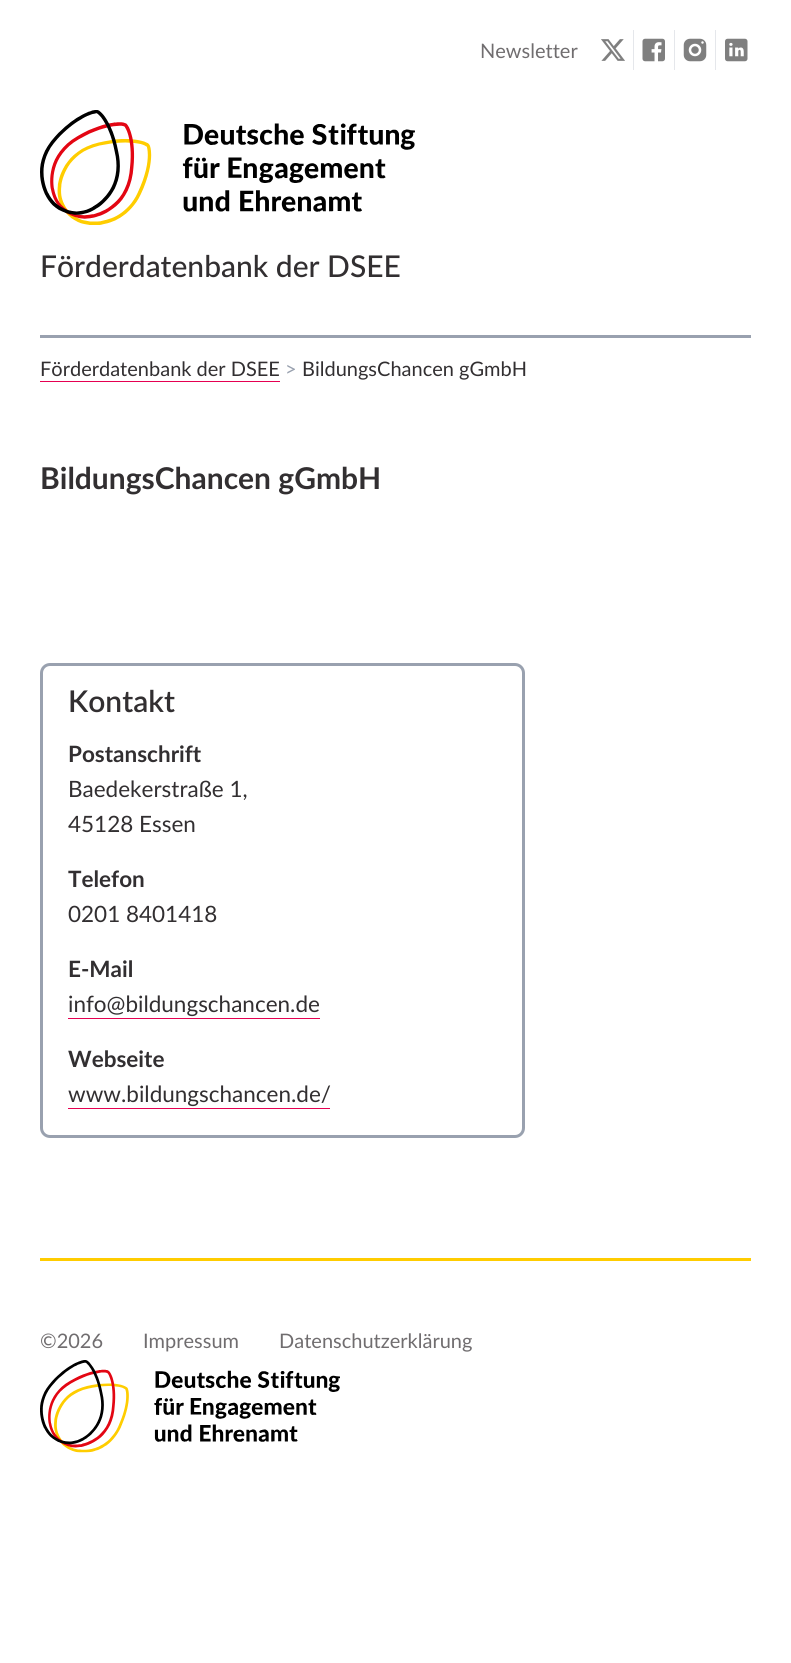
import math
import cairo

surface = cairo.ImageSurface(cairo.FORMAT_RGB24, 791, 1663)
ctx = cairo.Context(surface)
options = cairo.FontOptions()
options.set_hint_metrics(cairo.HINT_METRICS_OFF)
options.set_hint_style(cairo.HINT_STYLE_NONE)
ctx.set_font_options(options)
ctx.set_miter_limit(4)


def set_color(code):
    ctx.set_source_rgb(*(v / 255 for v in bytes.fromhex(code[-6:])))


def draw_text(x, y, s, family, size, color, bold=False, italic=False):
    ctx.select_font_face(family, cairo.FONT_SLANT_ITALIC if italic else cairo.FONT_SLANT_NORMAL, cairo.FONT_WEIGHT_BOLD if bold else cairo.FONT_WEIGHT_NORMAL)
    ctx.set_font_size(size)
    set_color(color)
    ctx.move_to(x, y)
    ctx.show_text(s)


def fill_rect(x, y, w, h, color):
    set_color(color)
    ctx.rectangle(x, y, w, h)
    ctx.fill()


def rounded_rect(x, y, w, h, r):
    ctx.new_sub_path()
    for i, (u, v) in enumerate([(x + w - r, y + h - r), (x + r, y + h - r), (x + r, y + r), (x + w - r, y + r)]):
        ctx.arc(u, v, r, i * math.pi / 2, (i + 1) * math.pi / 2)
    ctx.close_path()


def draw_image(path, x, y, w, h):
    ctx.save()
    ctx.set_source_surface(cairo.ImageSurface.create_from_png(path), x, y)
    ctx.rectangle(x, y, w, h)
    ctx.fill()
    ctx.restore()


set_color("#ffffff")
ctx.paint()
draw_text(480, 58, "Newsletter", "Lato", 20, "#706d6f")
fill_rect(633, 30, 1, 40, "#e5e7eb")
draw_image("assets/img1.png", 601, 39, 24, 22)
fill_rect(674, 30, 1, 40, "#e5e7eb")
draw_image("assets/img2.png", 642, 38, 23, 24)
fill_rect(715, 30, 1, 40, "#e5e7eb")
draw_image("assets/img3.png", 683, 38, 24, 24)
draw_image("assets/img4.png", 725, 38, 23, 24)
draw_image("assets/img5.png", 40, 110, 375, 115)
draw_text(40, 277, "Förderdatenbank der DSEE", "Lato Medium", 30, "#322f31")
fill_rect(40, 335, 711, 3, "#99a1af")
draw_text(40, 376, "Förderdatenbank der DSEE", "Lato", 20, "#322f31")
fill_rect(40, 381, 240, 1, "#e50051")
draw_text(285, 376, ">", "Lato", 20, "#99a1af")
draw_text(302, 376, "BildungsChancen gGmbH", "Lato", 20, "#322f31")
draw_text(40, 489, "BildungsChancen gGmbH", "Lato", 30, "#322f31", bold=True)
rounded_rect(41.5, 664.5, 482, 472, 8.5)
set_color("#99a1af")
ctx.set_line_width(3)
ctx.stroke()
draw_text(68, 712, "Kontakt", "Lato SemiBold", 30, "#322f31")
draw_text(68, 762, "Postanschrift", "Lato", 22.5, "#322f31", bold=True)
draw_text(68, 797, "Baedekerstraße 1,", "Lato", 22.5, "#322f31")
draw_text(68, 832, "45128 Essen", "Lato", 22.5, "#322f31")
draw_text(68, 887, "Telefon", "Lato", 22.5, "#322f31", bold=True)
draw_text(68, 922, "0201 8401418", "Lato", 22.5, "#322f31")
draw_text(68, 977, "E-Mail", "Lato", 22.5, "#322f31", bold=True)
draw_text(68, 1012, "info@bildungschancen.de", "Lato", 22.5, "#322f31")
fill_rect(68, 1018, 252, 1, "#e50051")
draw_text(68, 1067, "Webseite", "Lato", 22.5, "#322f31", bold=True)
draw_text(68, 1102, "www.bildungschancen.de/", "Lato", 22.5, "#322f31")
fill_rect(68, 1108, 262, 1, "#e50051")
fill_rect(40, 1258, 711, 3, "#ffcc00")
draw_text(40, 1348, "©2026", "Lato", 20, "#706d6f")
draw_text(143, 1348, "Impressum", "Lato", 20, "#706d6f")
draw_text(279, 1348, "Datenschutzerklärung", "Lato", 20, "#706d6f")
draw_image("assets/img6.png", 40, 1360, 300, 93)
surface.write_to_png("output.png")
